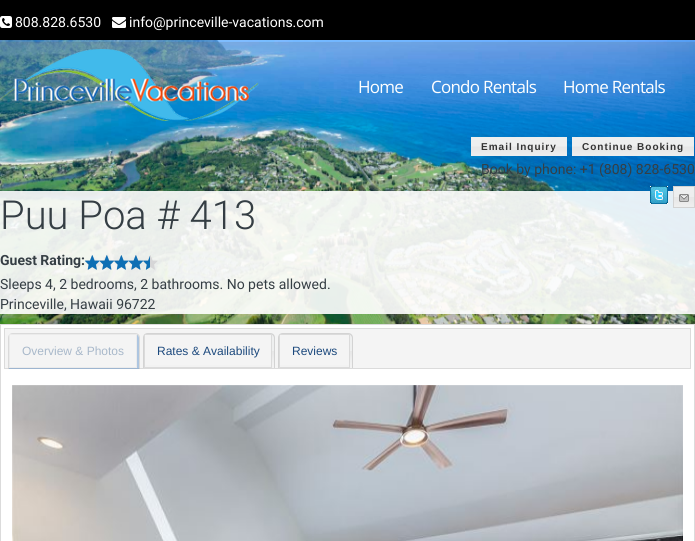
import math
import cairo

surface = cairo.ImageSurface(cairo.FORMAT_RGB24, 695, 541)
ctx = cairo.Context(surface)
options = cairo.FontOptions()
options.set_hint_metrics(cairo.HINT_METRICS_OFF)
options.set_hint_style(cairo.HINT_STYLE_NONE)
ctx.set_font_options(options)
ctx.set_miter_limit(4)


def set_color(code):
    ctx.set_source_rgb(*(v / 255 for v in bytes.fromhex(code[-6:])))


def draw_text(x, y, s, family, size, color, bold=False, italic=False):
    ctx.select_font_face(family, cairo.FONT_SLANT_ITALIC if italic else cairo.FONT_SLANT_NORMAL, cairo.FONT_WEIGHT_BOLD if bold else cairo.FONT_WEIGHT_NORMAL)
    ctx.set_font_size(size)
    set_color(color)
    ctx.move_to(x, y)
    ctx.show_text(s)


def draw_spaced(x, y, s, letter, word):
    ctx.move_to(x, y)
    for ch in s:
        ctx.show_text(ch)
        ctx.rel_move_to(letter + word * (ch == ' '), 0)


def fill_rect(x, y, w, h, color):
    set_color(color)
    ctx.rectangle(x, y, w, h)
    ctx.fill()


def draw_image(path, x, y, w, h):
    ctx.save()
    ctx.set_source_surface(cairo.ImageSurface.create_from_png(path), x, y)
    ctx.rectangle(x, y, w, h)
    ctx.fill()
    ctx.restore()


set_color("#ffffff")
ctx.paint()
draw_image("assets/img1.png", 0, 40, 695, 284)
fill_rect(0, 0, 695, 40, "#000000")
draw_image("assets/img2.png", 0, 16, 12, 12)
draw_text(15, 27, "808.828.6530", "Roboto", 14, "#ffffff")
draw_image("assets/img3.png", 112, 17, 14, 11)
draw_text(129, 27, "info@princeville-vacations.com", "Roboto", 14, "#ffffff")
draw_image("assets/img4.png", 0, 42, 695, 71)
draw_image("assets/img5.png", 0, 49, 259, 72)
ctx.select_font_face("Open Sans")
ctx.set_font_size(17)
draw_spaced(358, 93, "Home", -0.75, 0)
draw_spaced(431, 93, "Condo Rentals", -0.75, 0)
draw_spaced(563, 93, "Home Rentals", -0.75, 0)
draw_image("assets/img6.png", 471, 137, 96, 19)
ctx.select_font_face("Liberation Sans", cairo.FONT_SLANT_NORMAL, cairo.FONT_WEIGHT_BOLD)
ctx.set_font_size(10)
set_color("#333333")
draw_spaced(481, 150, "Email Inquiry", 1, 0)
draw_image("assets/img7.png", 572, 137, 122, 19)
draw_spaced(582, 150, "Continue Booking", 1, 0)
draw_text(481, 174, "Book by phone: +1 (808) 828-6530", "Roboto", 14, "#353e44")
ctx.set_source_rgba(1, 1, 1, 0.9)
ctx.rectangle(0, 191, 695, 123)
ctx.fill()
draw_image("assets/img8.png", 650, 186, 18, 18)
draw_image("assets/img9.png", 674, 187, 20, 20)
ctx.rectangle(673.5, 186.5, 21, 21)
set_color("#d3d3d3")
ctx.set_line_width(1)
ctx.stroke()
draw_image("assets/img10.png", 679, 194, 10, 8)
draw_text(0, 229, "Puu Poa # 413", "Roboto Light", 40, "#353e44")
draw_text(0, 265, "Guest Rating:", "Roboto", 14, "#353e44", bold=True)
draw_image("assets/img11.png", 85, 255, 73, 15)
draw_image("assets/img12.png", 85, 255, 65, 15)
draw_text(0, 289, "Sleeps 4, 2 bedrooms, 2 bathrooms. No pets allowed.", "Roboto", 14, "#353e44")
draw_text(0, 309, "Princeville, Hawaii 96722", "Roboto", 14, "#353e44")
ctx.rectangle(0.5, 324.5, 694, 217)
set_color("#dbdbdb")
ctx.stroke()
set_color("#f4f4f4")
ctx.rectangle(4.5, 328.5, 686, 40)
ctx.fill_preserve()
set_color("#dbdbdb")
ctx.stroke()
ctx.set_source_rgba(0.165, 0.431, 0.733, 0.35)
ctx.new_path()
ctx.move_to(13, 334)
ctx.line_to(135, 334)
ctx.curve_to(137, 334, 139, 336, 139, 338)
ctx.line_to(139, 369)
ctx.line_to(9, 369)
ctx.line_to(9, 338)
ctx.curve_to(9, 336, 11, 334, 13, 334)
ctx.close_path()
ctx.fill()
ctx.set_source_rgba(0.667, 0.667, 0.667, 0.35)
ctx.set_fill_rule(cairo.FILL_RULE_EVEN_ODD)
ctx.new_path()
ctx.move_to(13, 333)
ctx.line_to(135, 333)
ctx.curve_to(138, 333, 140, 335, 140, 338)
ctx.line_to(140, 369)
ctx.line_to(8, 369)
ctx.line_to(8, 338)
ctx.curve_to(8, 335, 10, 333, 13, 333)
ctx.close_path()
ctx.move_to(13, 334)
ctx.line_to(135, 334)
ctx.curve_to(137, 334, 139, 336, 139, 338)
ctx.line_to(139, 369)
ctx.line_to(9, 369)
ctx.line_to(9, 338)
ctx.curve_to(9, 336, 11, 334, 13, 334)
ctx.close_path()
ctx.fill()
set_color("#f4f4f4")
ctx.rectangle(9.5, 334.5, 127, 33)
ctx.fill_preserve()
set_color("#ebebeb")
ctx.stroke()
draw_text(22, 355, "Overview & Photos", "Liberation Sans", 12, "#a8b8ca")
draw_image("assets/img13.png", 143, 333, 132, 35)
set_color("#d3d3d3")
ctx.new_path()
ctx.move_to(148, 333)
ctx.line_to(270, 333)
ctx.curve_to(273, 333, 275, 335, 275, 338)
ctx.line_to(275, 368)
ctx.line_to(143, 368)
ctx.line_to(143, 338)
ctx.curve_to(143, 335, 145, 333, 148, 333)
ctx.close_path()
ctx.move_to(148, 334)
ctx.line_to(270, 334)
ctx.curve_to(272, 334, 274, 336, 274, 338)
ctx.line_to(274, 368)
ctx.line_to(144, 368)
ctx.line_to(144, 338)
ctx.curve_to(144, 336, 146, 334, 148, 334)
ctx.close_path()
ctx.fill()
fill_rect(145, 335, 126, 30, "#f4f4f4")
ctx.rectangle(144.5, 334.5, 127, 33)
set_color("#dbdbdb")
ctx.stroke()
draw_text(157, 355, "Rates & Availability", "Liberation Sans", 12, "#1c497d")
draw_image("assets/img14.png", 278, 333, 75, 35)
set_color("#d3d3d3")
ctx.new_path()
ctx.move_to(283, 333)
ctx.line_to(348, 333)
ctx.curve_to(351, 333, 353, 335, 353, 338)
ctx.line_to(353, 368)
ctx.line_to(278, 368)
ctx.line_to(278, 338)
ctx.curve_to(278, 335, 280, 333, 283, 333)
ctx.close_path()
ctx.move_to(283, 334)
ctx.line_to(348, 334)
ctx.curve_to(350, 334, 352, 336, 352, 338)
ctx.line_to(352, 368)
ctx.line_to(279, 368)
ctx.line_to(279, 338)
ctx.curve_to(279, 336, 281, 334, 283, 334)
ctx.close_path()
ctx.fill()
fill_rect(280, 335, 69, 30, "#f4f4f4")
ctx.rectangle(279.5, 334.5, 70, 33)
set_color("#dbdbdb")
ctx.stroke()
draw_text(292, 355, "Reviews", "Liberation Sans", 12, "#1c497d")
draw_image("assets/img15.png", 12, 385, 671, 156)
surface.write_to_png("output.png")
